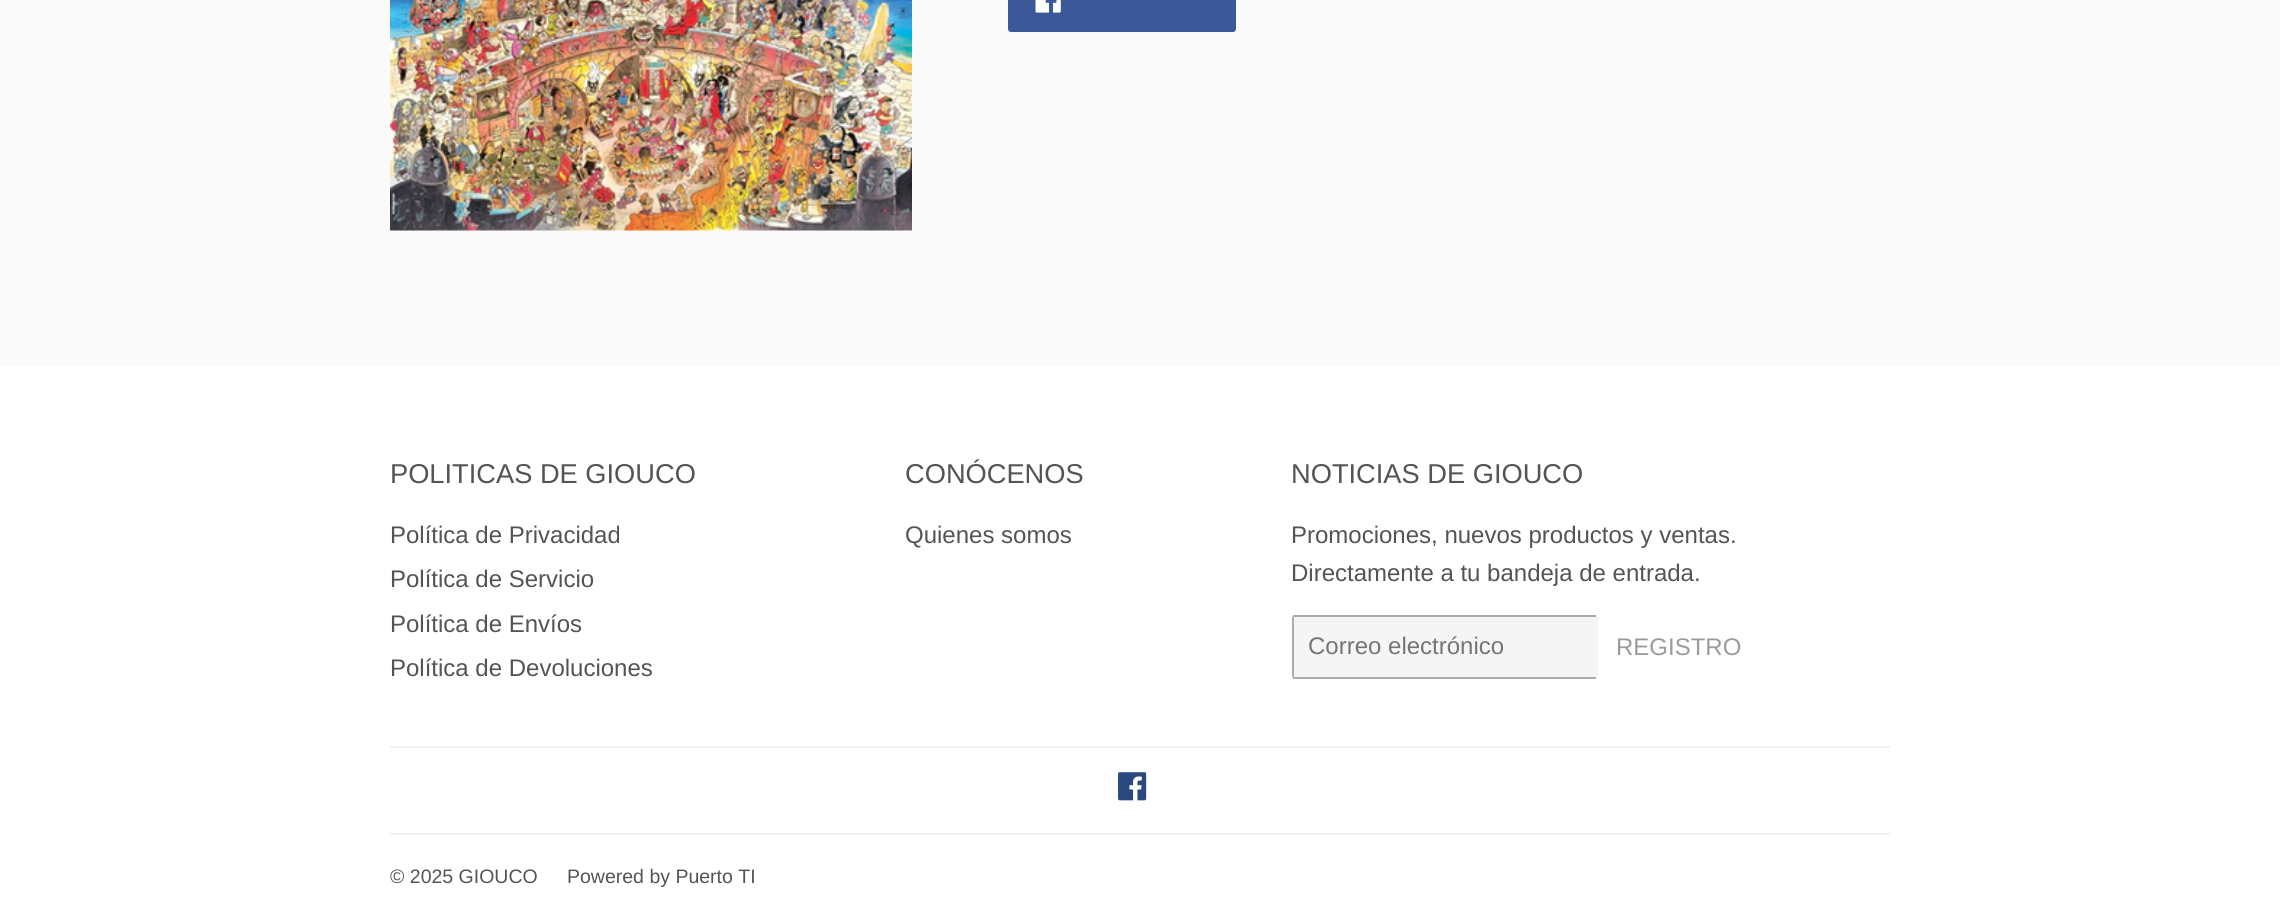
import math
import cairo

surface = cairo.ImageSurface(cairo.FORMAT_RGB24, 2280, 902)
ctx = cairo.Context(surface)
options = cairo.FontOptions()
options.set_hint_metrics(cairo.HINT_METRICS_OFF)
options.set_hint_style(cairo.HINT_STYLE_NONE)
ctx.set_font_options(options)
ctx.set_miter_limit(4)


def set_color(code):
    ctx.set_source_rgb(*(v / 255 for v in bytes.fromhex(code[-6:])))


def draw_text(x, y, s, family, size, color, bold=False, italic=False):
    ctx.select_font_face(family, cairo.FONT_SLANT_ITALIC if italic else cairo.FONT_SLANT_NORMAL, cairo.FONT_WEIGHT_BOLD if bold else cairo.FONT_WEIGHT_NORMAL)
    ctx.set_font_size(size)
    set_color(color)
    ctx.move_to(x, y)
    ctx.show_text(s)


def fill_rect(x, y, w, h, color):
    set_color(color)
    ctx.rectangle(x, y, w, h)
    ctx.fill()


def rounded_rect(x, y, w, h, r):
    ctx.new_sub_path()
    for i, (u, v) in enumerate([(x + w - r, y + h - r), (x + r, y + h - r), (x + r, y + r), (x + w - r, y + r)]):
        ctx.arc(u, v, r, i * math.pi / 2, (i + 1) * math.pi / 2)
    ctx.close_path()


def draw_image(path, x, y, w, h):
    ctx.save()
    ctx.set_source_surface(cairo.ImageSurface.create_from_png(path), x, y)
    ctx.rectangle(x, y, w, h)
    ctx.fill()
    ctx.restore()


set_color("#fafafa")
ctx.paint()
draw_image("assets/img1.png", 390, 0, 522, 231)
set_color("#3b5998")
rounded_rect(1008, -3, 228, 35, 3)
ctx.fill()
draw_image("assets/img2.png", 1035, 0, 26, 13)
fill_rect(0, 366, 2280, 536, "#ffffff")
draw_text(390, 483, "POLITICAS DE GIOUCO", "Liberation Sans", 27.25, "#545454")
draw_text(390, 543, "Política de Privacidad", "Liberation Sans", 24, "#545454")
draw_text(390, 587, "Política de Servicio", "Liberation Sans", 24, "#545454")
draw_text(390, 632, "Política de Envíos", "Liberation Sans", 24, "#545454")
draw_text(390, 676, "Política de Devoluciones", "Liberation Sans", 24, "#545454")
draw_text(905, 483, "CONÓCENOS", "Liberation Sans", 27.25, "#545454")
draw_text(905, 543, "Quienes somos", "Liberation Sans", 24, "#545454")
draw_text(1291, 483, "NOTICIAS DE GIOUCO", "Liberation Sans", 27.25, "#545454")
draw_text(1291, 543, "Promociones, nuevos productos y ventas.", "Liberation Sans", 24, "#545454")
draw_text(1291, 581, "Directamente a tu bandeja de entrada.", "Liberation Sans", 24, "#545454")
set_color("#f5f5f5")
rounded_rect(1292, 615, 306, 63, 3)
ctx.fill()
fill_rect(1293, 615, 303, 2, "#ababab")
fill_rect(1293, 677, 303, 2, "#ababab")
fill_rect(1292, 617, 2, 60, "#ababab")
draw_text(1308, 654, "Correo electrónico", "Liberation Sans", 24, "#757575")
draw_text(1616, 655, "REGISTRO", "Liberation Sans", 24, "#9c9b9b")
fill_rect(390, 746, 1500, 2, "#f2f2f2")
draw_image("assets/img3.png", 1118, 772, 29, 29)
fill_rect(390, 833, 1500, 2, "#f2f2f2")
draw_text(390, 883, "© 2025 GIOUCO", "Liberation Sans", 19.5, "#545454")
draw_text(567, 883, "Powered by Puerto TI", "Liberation Sans", 19.5, "#545454")
surface.write_to_png("output.png")
